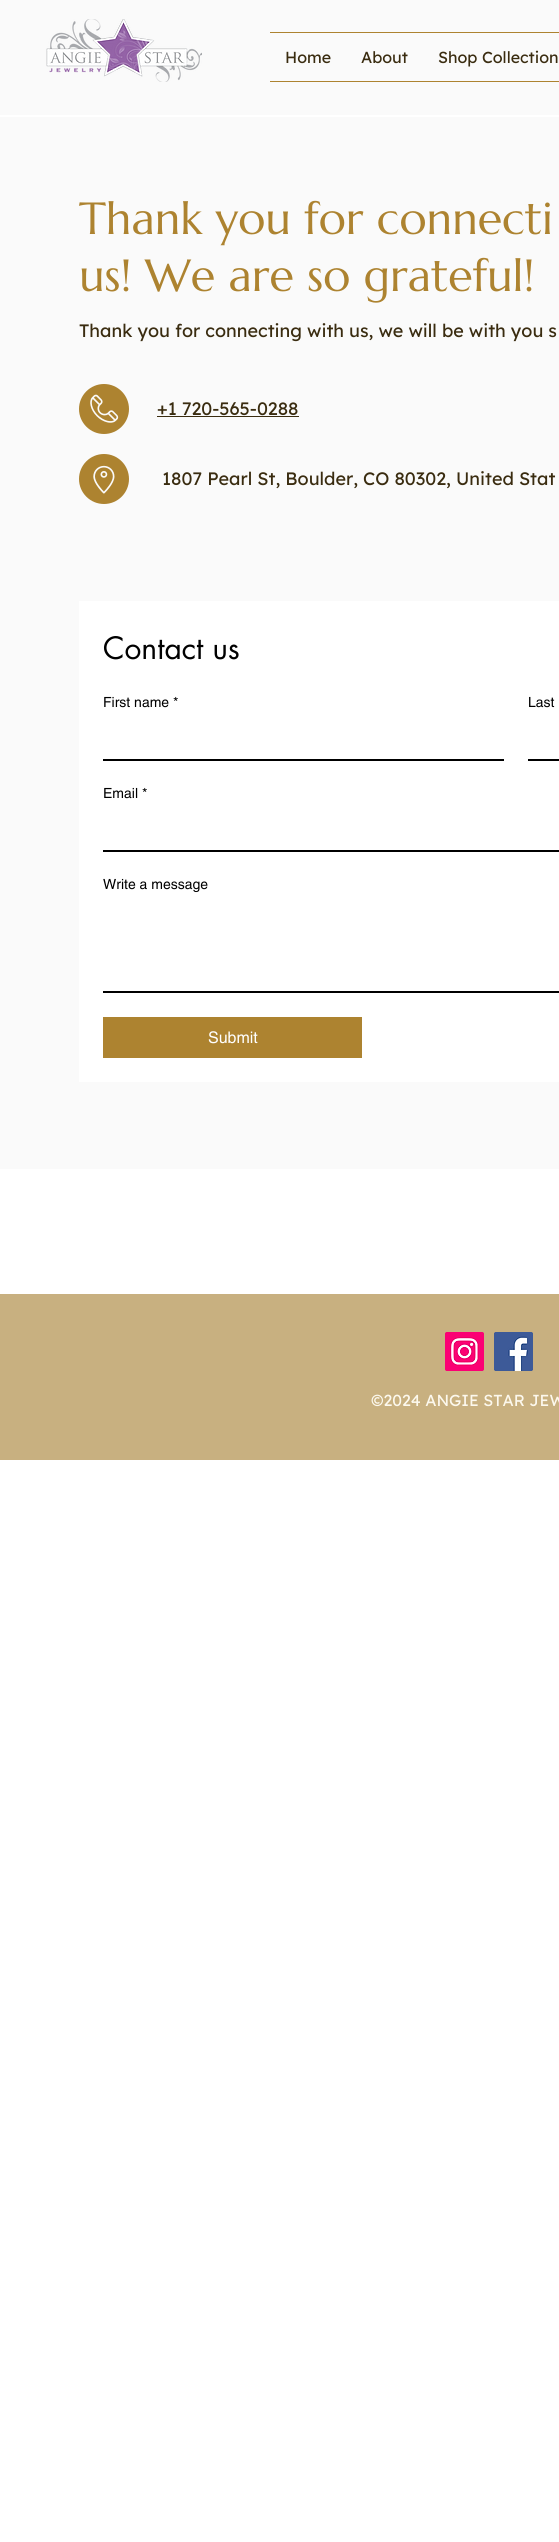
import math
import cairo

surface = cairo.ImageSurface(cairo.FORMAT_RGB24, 559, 2542)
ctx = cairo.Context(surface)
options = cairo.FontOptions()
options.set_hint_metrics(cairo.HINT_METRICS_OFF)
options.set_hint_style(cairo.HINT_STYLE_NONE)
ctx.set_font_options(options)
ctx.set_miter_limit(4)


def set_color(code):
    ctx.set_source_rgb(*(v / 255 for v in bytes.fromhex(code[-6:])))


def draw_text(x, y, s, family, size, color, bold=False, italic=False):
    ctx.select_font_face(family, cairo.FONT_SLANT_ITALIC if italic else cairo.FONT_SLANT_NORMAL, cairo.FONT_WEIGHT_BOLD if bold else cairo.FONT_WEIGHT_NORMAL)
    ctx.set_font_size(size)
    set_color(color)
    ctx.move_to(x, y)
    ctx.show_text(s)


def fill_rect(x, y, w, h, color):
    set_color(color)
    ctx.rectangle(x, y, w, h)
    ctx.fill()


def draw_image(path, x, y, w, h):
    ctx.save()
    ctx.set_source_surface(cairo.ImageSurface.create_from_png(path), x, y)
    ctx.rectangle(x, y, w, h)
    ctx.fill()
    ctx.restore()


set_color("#ffffff")
ctx.paint()
fill_rect(0, 0, 559, 115, "#fafafa")
draw_image("assets/img1.png", 46, 19, 156, 63)
fill_rect(270, 32, 289, 1, "#ad8330")
fill_rect(270, 81, 289, 1, "#ad8330")
draw_text(285, 63, "Home", "Lexend", 16, "#3a2c10")
draw_text(361, 63, "About", "Lexend", 16, "#3a2c10")
draw_text(438, 63, "Shop Collection", "Lexend", 16, "#3a2c10")
fill_rect(0, 117, 559, 1052, "#fafafa")
draw_text(79, 234, "Thank you for connecti", "Marcellus", 45, "#ad8330")
draw_text(79, 291, "us! We are so grateful!", "Marcellus", 45, "#ad8330")
draw_text(79, 337, "Thank you for connecting with us, we will be with you s", "Lexend", 18, "#3a2c10")
draw_image("assets/img2.png", 79, 384, 50, 50)
draw_text(157, 415, "+1 720-565-0288", "Lexend", 18, "#3a2c10")
fill_rect(157, 416, 142, 1, "#3a2c10")
draw_image("assets/img3.png", 79, 454, 50, 50)
draw_text(162, 485, "1807 Pearl St, Boulder, CO 80302, United Stat", "Lexend", 18, "#3a2c10")
fill_rect(79, 601, 480, 481, "#ffffff")
draw_text(103, 659, "Contact us", "futura", 30, "#000000")
draw_text(103, 707, "First name *", "helvetica", 14, "#000000")
draw_text(528, 707, "Last", "helvetica", 14, "#000000")
fill_rect(103, 759, 401, 2, "#000000")
fill_rect(528, 759, 31, 2, "#000000")
draw_text(103, 798, "Email *", "helvetica", 14, "#000000")
fill_rect(103, 850, 456, 2, "#000000")
draw_text(103, 889, "Write a message", "helvetica", 14, "#000000")
fill_rect(103, 991, 456, 2, "#000000")
fill_rect(103, 1017, 259, 41, "#ad8330")
draw_text(208, 1043, "Submit", "helvetica", 16, "#ffffff")
fill_rect(0, 1294, 559, 166, "#c8b080")
draw_image("assets/img4.png", 445, 1332, 39, 39)
draw_image("assets/img5.png", 494, 1332, 39, 39)
draw_text(371, 1406, "©2024 ANGIE STAR JEW", "Lexend", 16, "#fcf8ed")
surface.write_to_png("output.png")
